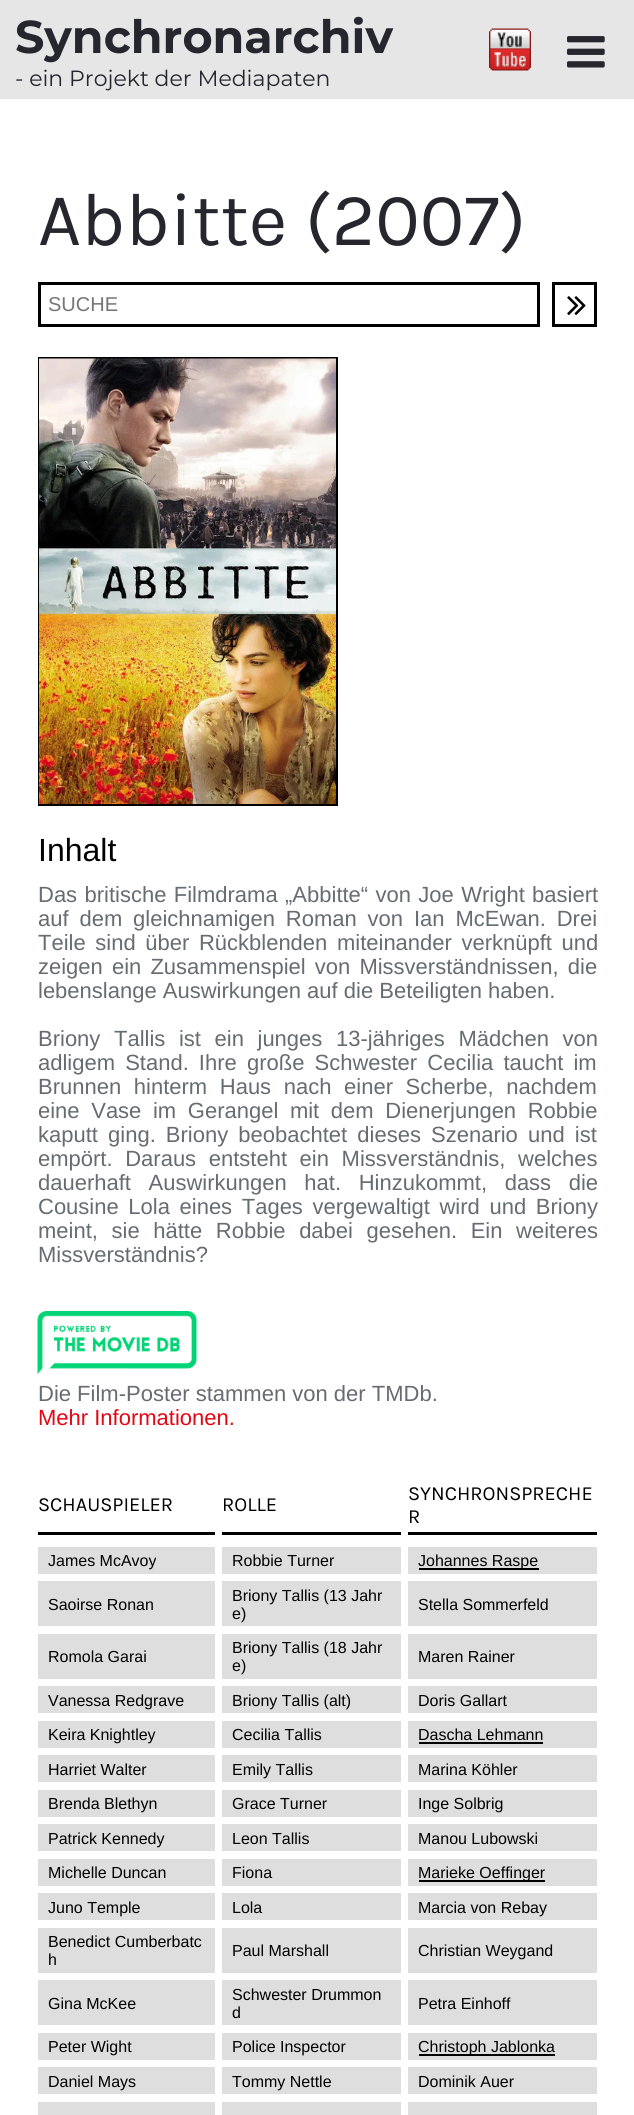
import math
import cairo

surface = cairo.ImageSurface(cairo.FORMAT_RGB24, 634, 2115)
ctx = cairo.Context(surface)
options = cairo.FontOptions()
options.set_hint_metrics(cairo.HINT_METRICS_OFF)
options.set_hint_style(cairo.HINT_STYLE_NONE)
ctx.set_font_options(options)
ctx.set_miter_limit(4)


def set_color(code):
    ctx.set_source_rgb(*(v / 255 for v in bytes.fromhex(code[-6:])))


def draw_text(x, y, s, family, size, color, bold=False, italic=False):
    ctx.select_font_face(family, cairo.FONT_SLANT_ITALIC if italic else cairo.FONT_SLANT_NORMAL, cairo.FONT_WEIGHT_BOLD if bold else cairo.FONT_WEIGHT_NORMAL)
    ctx.set_font_size(size)
    set_color(color)
    ctx.move_to(x, y)
    ctx.show_text(s)


def draw_spaced(x, y, s, letter, word):
    ctx.move_to(x, y)
    for ch in s:
        ctx.show_text(ch)
        ctx.rel_move_to(letter + word * (ch == ' '), 0)


def fill_rect(x, y, w, h, color):
    set_color(color)
    ctx.rectangle(x, y, w, h)
    ctx.fill()


def draw_image(path, x, y, w, h):
    ctx.save()
    ctx.set_source_surface(cairo.ImageSurface.create_from_png(path), x, y)
    ctx.rectangle(x, y, w, h)
    ctx.fill()
    ctx.restore()


set_color("#ffffff")
ctx.paint()
fill_rect(0, 0, 634, 99, "#e6e6e6")
draw_text(15, 53, "Synchronarchiv", "Montserrat", 46, "#25262e", bold=True)
draw_text(15, 86, "- ein Projekt der Mediapaten", "Montserrat", 22, "#25262e")
draw_image("assets/img1.png", 489, 28, 42, 43)
draw_image("assets/img2.png", 567, 36, 38, 32)
draw_text(38, 245, "Abbitte (2007)", "Karla", 75, "#25262e")
ctx.rectangle(39.5, 283.5, 499, 42)
set_color("#000000")
ctx.set_line_width(3)
ctx.stroke()
draw_text(48, 311, "SUCHE", "Liberation Sans", 20, "#757575")
ctx.rectangle(553.5, 283.5, 42, 42)
set_color("#000000")
ctx.stroke()
draw_image("assets/img3.png", 567, 296, 19, 19)
ctx.rectangle(39, 358, 298, 447)
ctx.set_line_width(2)
ctx.stroke()
draw_image("assets/img4.png", 39, 358, 297, 446)
draw_text(38, 861, "Inhalt", "Liberation Sans", 32, "#000000")
ctx.set_font_size(22)
set_color("#666c72")
draw_spaced(38, 902, "Das britische Filmdrama „Abbitte“ von Joe Wright basiert", 0, 1.25)
draw_spaced(38, 926, "auf dem gleichnamigen Roman von Ian McEwan. Drei", 0, 4.75)
draw_spaced(38, 950, "Teile sind über Rückblenden miteinander verknüpft und", 0, 3.5)
draw_spaced(38, 974, "zeigen ein Zusammenspiel von Missverständnissen, die", 0, 3)
draw_text(38, 998, "lebenslange Auswirkungen auf die Beteiligten haben.", "Liberation Sans", 22, "#666c72")
draw_spaced(38, 1046, "Briony Tallis ist ein junges 13-jähriges Mädchen von", 0, 7.5)
draw_spaced(38, 1070, "adligem Stand. Ihre große Schwester Cecilia taucht im", 0, 4)
draw_spaced(38, 1094, "Brunnen hinterm Haus nach einer Scherbe, nachdem", 0, 6.5)
draw_spaced(38, 1118, "eine Vase im Gerangel mit dem Dienerjungen Robbie", 0, 5.5)
draw_spaced(38, 1142, "kaputt ging. Briony beobachtet dieses Szenario und ist", 0, 4)
draw_spaced(38, 1166, "empört. Daraus entsteht ein Missverständnis, welches", 0, 6.5)
draw_spaced(38, 1190, "dauerhaft Auswirkungen hat. Hinzukommt, dass die", 0, 11.5)
draw_spaced(38, 1214, "Cousine Lola eines Tages vergewaltigt wird und Briony", 0, 3.5)
draw_spaced(38, 1238, "meint, sie hätte Robbie dabei gesehen. Ein weiteres", 0, 7.5)
draw_text(38, 1262, "Missverständnis?", "Liberation Sans", 22, "#666c72")
draw_image("assets/img5.png", 37, 1311, 160, 63)
draw_text(38, 1401, "Die Film-Poster stammen von der TMDb.", "Liberation Sans", 22, "#666c72")
draw_text(38, 1425, "Mehr Informationen.", "Liberation Sans", 22, "#e30613")
fill_rect(38, 1532, 177, 3, "#000000")
draw_text(38, 1511, "SCHAUSPIELER", "Karla", 20, "#000000")
fill_rect(222, 1532, 179, 3, "#000000")
draw_text(222, 1511, "ROLLE", "Karla", 20, "#000000")
fill_rect(408, 1532, 189, 3, "#000000")
draw_text(408, 1500, "SYNCHRONSPRECHE", "Karla", 20, "#000000")
draw_text(408, 1523, "R", "Karla", 20, "#000000")
fill_rect(38, 1547, 177, 27, "#dedede")
draw_text(48, 1566, "James McAvoy", "Liberation Sans", 16, "#000000")
fill_rect(222, 1547, 179, 27, "#dedede")
draw_text(232, 1566, "Robbie Turner", "Liberation Sans", 16, "#000000")
fill_rect(408, 1547, 189, 27, "#dedede")
fill_rect(419, 1568, 120, 2, "#000000")
draw_text(418, 1566, "Johannes Raspe", "Liberation Sans", 16, "#000000")
fill_rect(38, 1581, 177, 45, "#dedede")
draw_text(48, 1610, "Saoirse Ronan", "Liberation Sans", 16, "#000000")
fill_rect(222, 1581, 179, 45, "#dedede")
draw_text(232, 1601, "Briony Tallis (13 Jahr", "Liberation Sans", 16, "#000000")
draw_text(232, 1619, "e)", "Liberation Sans", 16, "#000000")
fill_rect(408, 1581, 189, 45, "#dedede")
draw_text(418, 1610, "Stella Sommerfeld", "Liberation Sans", 16, "#000000")
fill_rect(38, 1634, 177, 45, "#dedede")
draw_text(48, 1662, "Romola Garai", "Liberation Sans", 16, "#000000")
fill_rect(222, 1634, 179, 45, "#dedede")
draw_text(232, 1653, "Briony Tallis (18 Jahr", "Liberation Sans", 16, "#000000")
draw_text(232, 1671, "e)", "Liberation Sans", 16, "#000000")
fill_rect(408, 1634, 189, 45, "#dedede")
draw_text(418, 1662, "Maren Rainer", "Liberation Sans", 16, "#000000")
fill_rect(38, 1686, 177, 27, "#dedede")
draw_text(48, 1706, "Vanessa Redgrave", "Liberation Sans", 16, "#000000")
fill_rect(222, 1686, 179, 27, "#dedede")
draw_text(232, 1706, "Briony Tallis (alt)", "Liberation Sans", 16, "#000000")
fill_rect(408, 1686, 189, 27, "#dedede")
draw_text(418, 1706, "Doris Gallart", "Liberation Sans", 16, "#000000")
fill_rect(38, 1721, 177, 27, "#dedede")
draw_text(48, 1740, "Keira Knightley", "Liberation Sans", 16, "#000000")
fill_rect(222, 1721, 179, 27, "#dedede")
draw_text(232, 1740, "Cecilia Tallis", "Liberation Sans", 16, "#000000")
fill_rect(408, 1721, 189, 27, "#dedede")
draw_text(418, 1740, "Dascha Lehmann", "Liberation Sans", 16, "#000000")
fill_rect(419, 1742, 124, 2, "#000000")
fill_rect(38, 1755, 177, 27, "#dedede")
draw_text(48, 1775, "Harriet Walter", "Liberation Sans", 16, "#000000")
fill_rect(222, 1755, 179, 27, "#dedede")
draw_text(232, 1775, "Emily Tallis", "Liberation Sans", 16, "#000000")
fill_rect(408, 1755, 189, 27, "#dedede")
draw_text(418, 1775, "Marina Köhler", "Liberation Sans", 16, "#000000")
fill_rect(38, 1790, 177, 27, "#dedede")
draw_text(48, 1809, "Brenda Blethyn", "Liberation Sans", 16, "#000000")
fill_rect(222, 1790, 179, 27, "#dedede")
draw_text(232, 1809, "Grace Turner", "Liberation Sans", 16, "#000000")
fill_rect(408, 1790, 189, 27, "#dedede")
draw_text(418, 1809, "Inge Solbrig", "Liberation Sans", 16, "#000000")
fill_rect(38, 1824, 177, 27, "#dedede")
draw_text(48, 1844, "Patrick Kennedy", "Liberation Sans", 16, "#000000")
fill_rect(222, 1824, 179, 27, "#dedede")
draw_text(232, 1844, "Leon Tallis", "Liberation Sans", 16, "#000000")
fill_rect(408, 1824, 189, 27, "#dedede")
draw_text(418, 1844, "Manou Lubowski", "Liberation Sans", 16, "#000000")
fill_rect(38, 1859, 177, 27, "#dedede")
draw_text(48, 1878, "Michelle Duncan", "Liberation Sans", 16, "#000000")
fill_rect(222, 1859, 179, 27, "#dedede")
draw_text(232, 1878, "Fiona", "Liberation Sans", 16, "#000000")
fill_rect(408, 1859, 189, 27, "#dedede")
fill_rect(419, 1880, 126, 2, "#000000")
draw_text(418, 1878, "Marieke Oeffinger", "Liberation Sans", 16, "#000000")
fill_rect(38, 1893, 177, 27, "#dedede")
draw_text(48, 1913, "Juno Temple", "Liberation Sans", 16, "#000000")
fill_rect(222, 1893, 179, 27, "#dedede")
draw_text(232, 1913, "Lola", "Liberation Sans", 16, "#000000")
fill_rect(408, 1893, 189, 27, "#dedede")
draw_text(418, 1913, "Marcia von Rebay", "Liberation Sans", 16, "#000000")
fill_rect(38, 1928, 177, 45, "#dedede")
draw_text(48, 1947, "Benedict Cumberbatc", "Liberation Sans", 16, "#000000")
draw_text(48, 1965, "h", "Liberation Sans", 16, "#000000")
fill_rect(222, 1928, 179, 45, "#dedede")
draw_text(232, 1956, "Paul Marshall", "Liberation Sans", 16, "#000000")
fill_rect(408, 1928, 189, 45, "#dedede")
draw_text(418, 1956, "Christian Weygand", "Liberation Sans", 16, "#000000")
fill_rect(38, 1980, 177, 45, "#dedede")
draw_text(48, 2009, "Gina McKee", "Liberation Sans", 16, "#000000")
fill_rect(222, 1980, 179, 45, "#dedede")
draw_text(232, 2000, "Schwester Drummon", "Liberation Sans", 16, "#000000")
draw_text(232, 2018, "d", "Liberation Sans", 16, "#000000")
fill_rect(408, 1980, 189, 45, "#dedede")
draw_text(418, 2009, "Petra Einhoff", "Liberation Sans", 16, "#000000")
fill_rect(38, 2033, 177, 27, "#dedede")
draw_text(48, 2052, "Peter Wight", "Liberation Sans", 16, "#000000")
fill_rect(222, 2033, 179, 27, "#dedede")
draw_text(232, 2052, "Police Inspector", "Liberation Sans", 16, "#000000")
fill_rect(408, 2033, 189, 27, "#dedede")
fill_rect(419, 2054, 136, 2, "#000000")
draw_text(418, 2052, "Christoph Jablonka", "Liberation Sans", 16, "#000000")
fill_rect(38, 2067, 177, 27, "#dedede")
draw_text(48, 2087, "Daniel Mays", "Liberation Sans", 16, "#000000")
fill_rect(222, 2067, 179, 27, "#dedede")
draw_text(232, 2087, "Tommy Nettle", "Liberation Sans", 16, "#000000")
fill_rect(408, 2067, 189, 27, "#dedede")
draw_text(418, 2087, "Dominik Auer", "Liberation Sans", 16, "#000000")
fill_rect(38, 2102, 177, 13, "#dedede")
fill_rect(222, 2102, 179, 13, "#dedede")
fill_rect(408, 2102, 189, 13, "#dedede")
surface.write_to_png("output.png")
